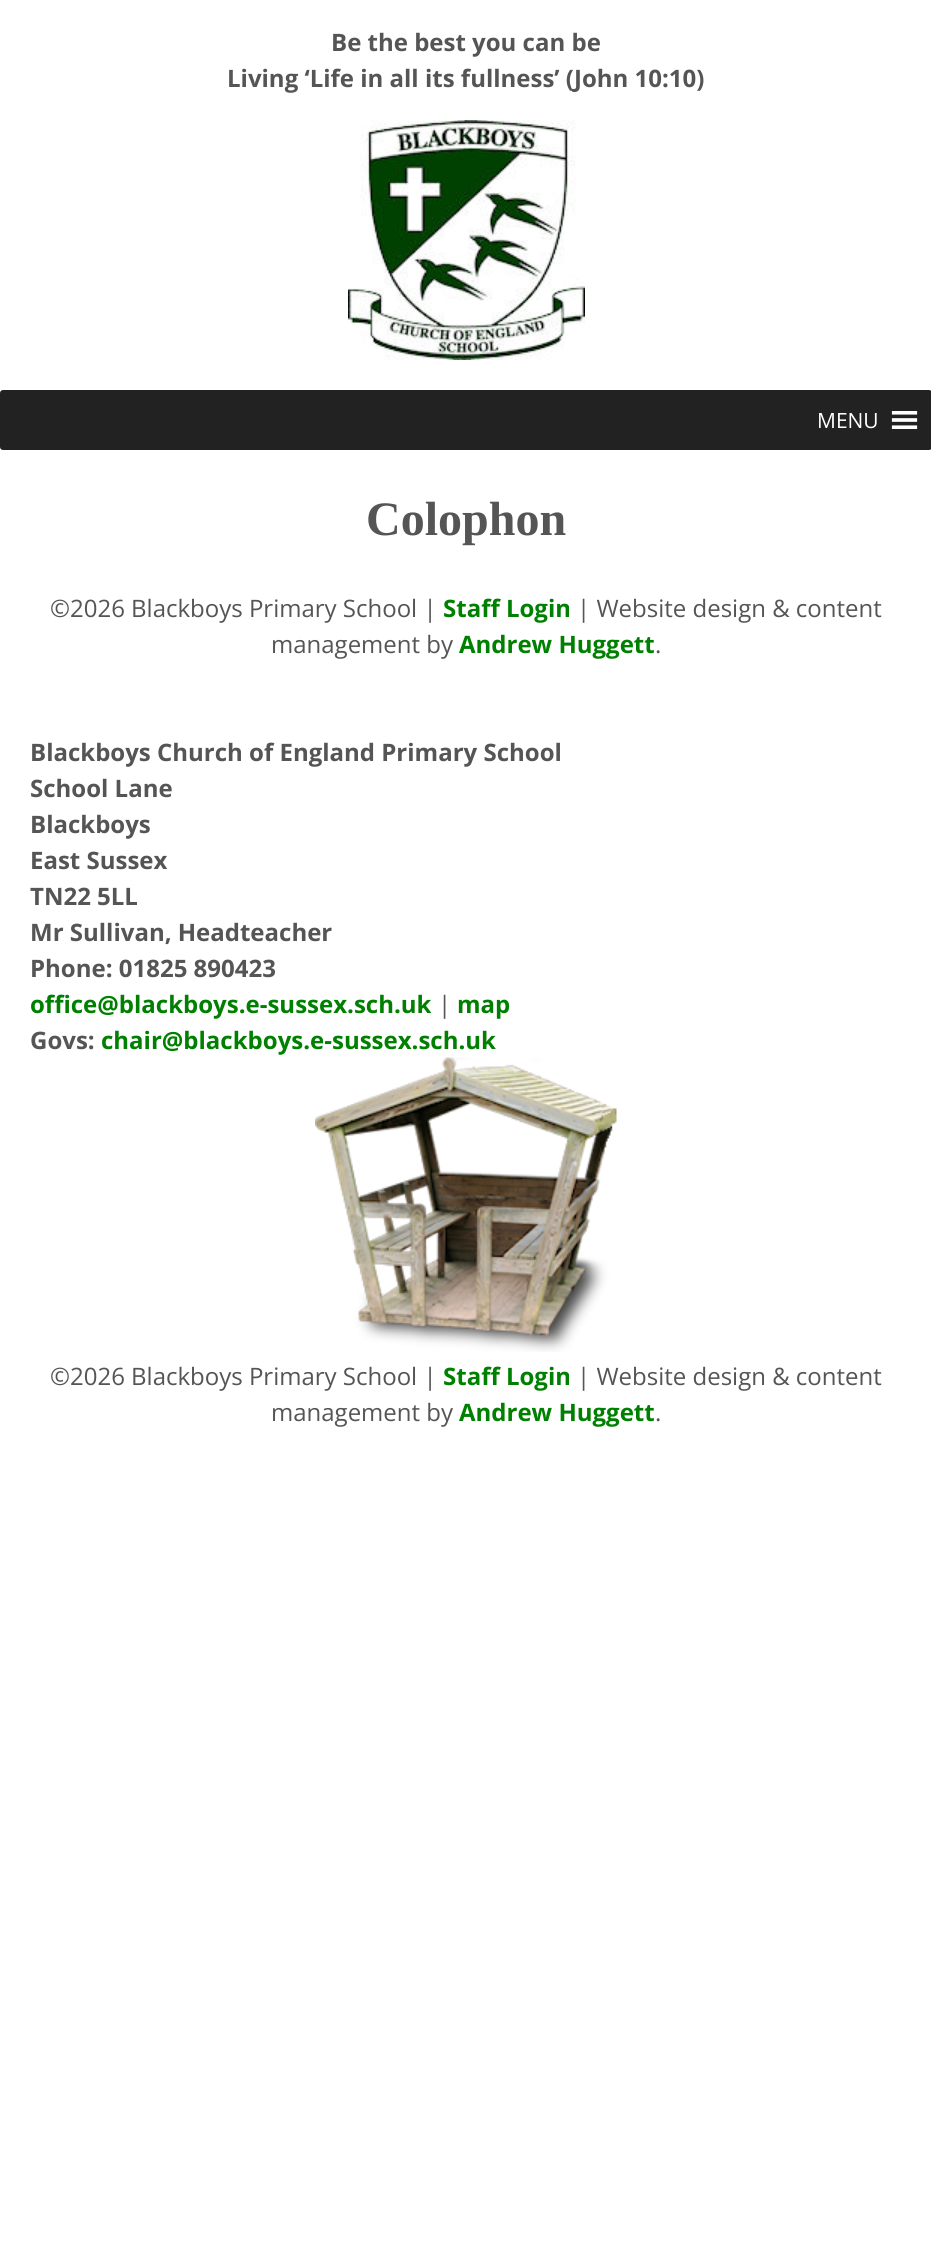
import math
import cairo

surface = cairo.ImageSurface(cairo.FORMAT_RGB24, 931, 2249)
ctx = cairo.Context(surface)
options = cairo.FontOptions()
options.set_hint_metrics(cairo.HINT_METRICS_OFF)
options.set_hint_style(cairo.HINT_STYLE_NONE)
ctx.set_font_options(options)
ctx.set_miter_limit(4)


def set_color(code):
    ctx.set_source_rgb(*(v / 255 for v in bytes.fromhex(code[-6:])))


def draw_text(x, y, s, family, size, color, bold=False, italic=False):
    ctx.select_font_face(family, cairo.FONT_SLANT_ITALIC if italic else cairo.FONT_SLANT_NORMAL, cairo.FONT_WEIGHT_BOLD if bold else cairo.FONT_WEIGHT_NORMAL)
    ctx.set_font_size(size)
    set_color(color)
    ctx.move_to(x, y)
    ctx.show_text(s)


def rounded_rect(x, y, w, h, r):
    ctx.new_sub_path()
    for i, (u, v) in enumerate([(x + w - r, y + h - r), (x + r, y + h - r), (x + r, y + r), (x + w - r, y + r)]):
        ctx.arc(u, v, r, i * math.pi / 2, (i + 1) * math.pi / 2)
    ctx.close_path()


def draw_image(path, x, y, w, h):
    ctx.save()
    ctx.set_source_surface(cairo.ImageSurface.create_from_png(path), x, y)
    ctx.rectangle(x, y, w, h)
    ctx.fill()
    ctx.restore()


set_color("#ffffff")
ctx.paint()
draw_text(331, 51, "Be the best you can be", "Open Sans", 24, "#555555", bold=True)
draw_text(227, 87, "Living ‘Life in all its fullness’ (John 10:10)", "Open Sans", 24, "#555555", bold=True)
draw_image("assets/img1.png", 348, 120, 237, 240)
set_color("#222222")
rounded_rect(0, 390, 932, 60, 3)
ctx.fill()
draw_text(817, 428, "MENU", "Open Sans", 21, "#ffffff")
draw_image("assets/img2.png", 891, 411, 27, 18)
draw_text(366, 535, "Colophon", "Liberation Serif", 48, "#555555", bold=True)
draw_text(50, 617, "©2026 Blackboys Primary School |", "Open Sans", 24, "#555555")
draw_text(443, 617, "Staff Login", "Open Sans", 24, "#008000", bold=True)
draw_text(577, 617, "| Website design & content", "Open Sans", 24, "#555555")
draw_text(271, 653, "management by", "Open Sans", 24, "#555555")
draw_text(459, 653, "Andrew Huggett", "Open Sans", 24, "#008000", bold=True)
draw_text(655, 653, ".", "Open Sans", 24, "#555555")
draw_text(30, 761, "Blackboys Church of England Primary School", "Open Sans", 24, "#555555", bold=True)
draw_text(30, 797, "School Lane", "Open Sans", 24, "#555555", bold=True)
draw_text(30, 833, "Blackboys", "Open Sans", 24, "#555555", bold=True)
draw_text(30, 869, "East Sussex", "Open Sans", 24, "#555555", bold=True)
draw_text(30, 905, "TN22 5LL", "Open Sans", 24, "#555555", bold=True)
draw_text(30, 941, "Mr Sullivan, Headteacher", "Open Sans", 24, "#555555", bold=True)
draw_text(30, 977, "Phone: 01825 890423", "Open Sans", 24, "#555555", bold=True)
draw_text(30, 1013, "office@blackboys.e-sussex.sch.uk", "Open Sans", 24, "#008000", bold=True)
draw_text(438, 1013, "|", "Open Sans", 24, "#555555")
draw_text(457, 1013, "map", "Open Sans", 24, "#008000", bold=True)
draw_text(30, 1049, "Govs:", "Open Sans", 24, "#555555", bold=True)
draw_text(101, 1049, "chair@blackboys.e-sussex.sch.uk", "Open Sans", 24, "#008000", bold=True)
draw_image("assets/img3.png", 315, 1057, 302, 295)
draw_text(50, 1385, "©2026 Blackboys Primary School |", "Open Sans", 24, "#555555")
draw_text(443, 1385, "Staff Login", "Open Sans", 24, "#008000", bold=True)
draw_text(577, 1385, "| Website design & content", "Open Sans", 24, "#555555")
draw_text(271, 1421, "management by", "Open Sans", 24, "#555555")
draw_text(459, 1421, "Andrew Huggett", "Open Sans", 24, "#008000", bold=True)
draw_text(655, 1421, ".", "Open Sans", 24, "#555555")
surface.write_to_png("output.png")
